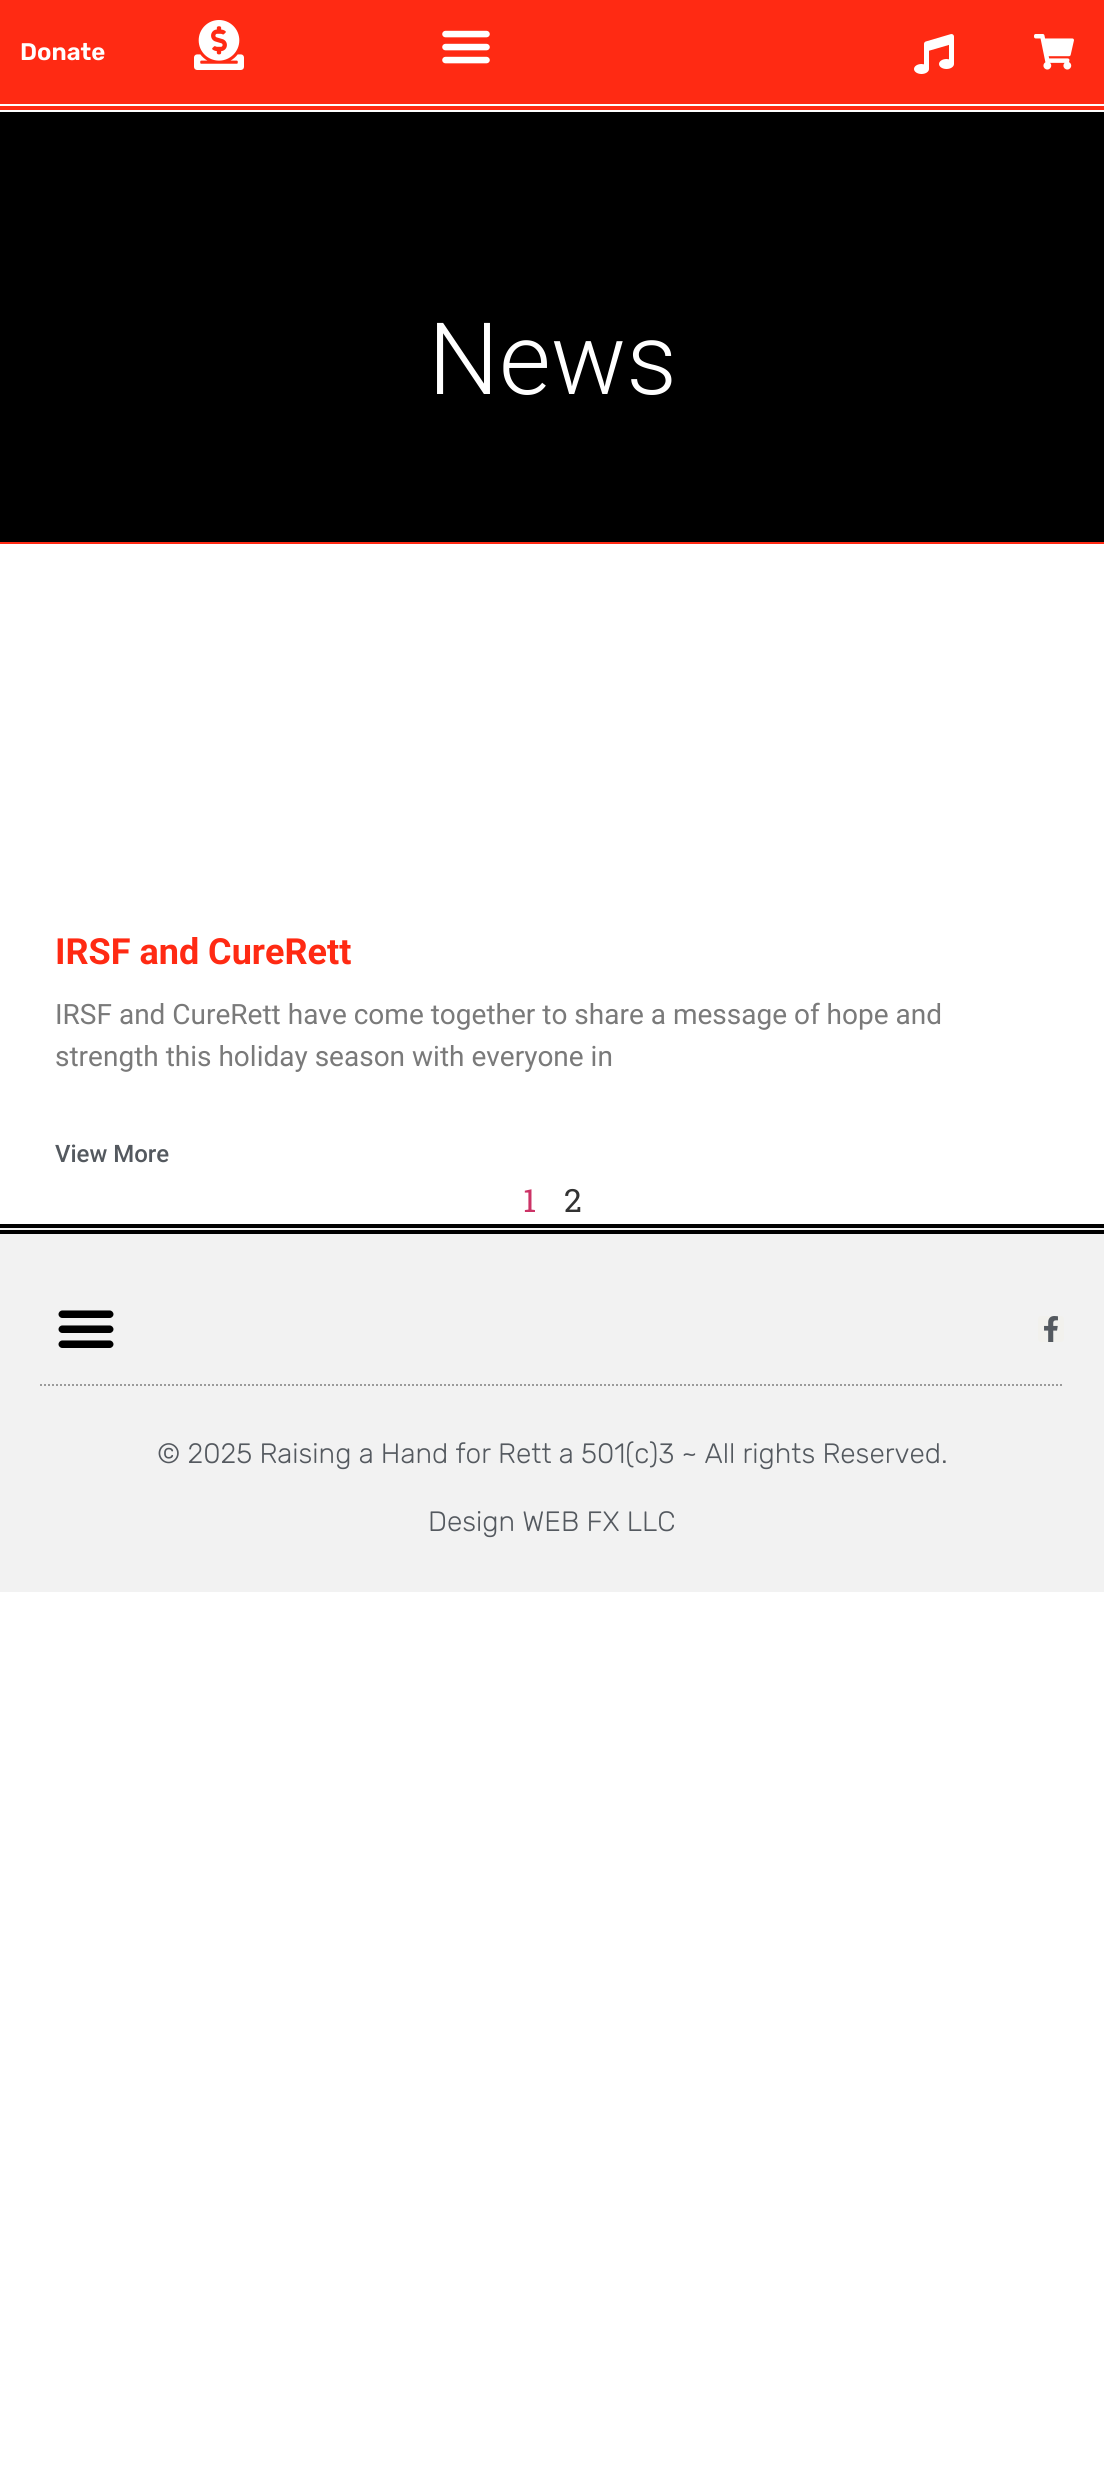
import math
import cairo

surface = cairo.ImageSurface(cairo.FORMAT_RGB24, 1104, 2470)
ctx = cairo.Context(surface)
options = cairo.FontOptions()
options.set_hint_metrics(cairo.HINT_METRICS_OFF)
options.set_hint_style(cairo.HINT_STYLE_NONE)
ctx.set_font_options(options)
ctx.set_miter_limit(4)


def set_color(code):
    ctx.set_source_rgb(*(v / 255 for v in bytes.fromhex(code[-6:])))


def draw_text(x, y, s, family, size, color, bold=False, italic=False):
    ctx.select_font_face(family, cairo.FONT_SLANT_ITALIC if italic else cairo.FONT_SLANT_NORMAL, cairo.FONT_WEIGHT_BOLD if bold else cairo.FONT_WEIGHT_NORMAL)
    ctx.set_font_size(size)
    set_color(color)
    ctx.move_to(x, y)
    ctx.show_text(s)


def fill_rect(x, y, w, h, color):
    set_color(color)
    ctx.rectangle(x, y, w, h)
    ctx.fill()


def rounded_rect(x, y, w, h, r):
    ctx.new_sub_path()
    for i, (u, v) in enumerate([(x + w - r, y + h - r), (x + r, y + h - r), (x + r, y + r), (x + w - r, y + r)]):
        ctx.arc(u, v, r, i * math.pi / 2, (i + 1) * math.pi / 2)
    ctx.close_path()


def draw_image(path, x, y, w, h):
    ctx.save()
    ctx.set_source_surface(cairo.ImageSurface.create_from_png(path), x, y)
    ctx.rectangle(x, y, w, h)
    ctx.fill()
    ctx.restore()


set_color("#ffffff")
ctx.paint()
fill_rect(0, 0, 1104, 110, "#ff2a13")
fill_rect(0, 104, 1104, 2, "#ffffff")
draw_text(20, 60, "Donate", "Rubik SemiBold", 24, "#ffffff")
draw_image("assets/img1.png", 194, 20, 50, 50)
draw_image("assets/img2.png", 442, 30, 48, 34)
draw_image("assets/img3.png", 914, 34, 40, 40)
draw_image("assets/img4.png", 1034, 34, 40, 36)
fill_rect(0, 112, 1104, 430, "#000000")
fill_rect(0, 542, 1104, 2, "#ff2a13")
draw_text(428, 394, "News", "Roboto Light", 100, "#ffffff")
draw_text(55, 964, "IRSF and CureRett", "Roboto", 36, "#ff2a13", bold=True)
draw_text(55, 1024, "IRSF and CureRett have come together to share a message of hope and", "Roboto", 28, "#7a7a7a")
draw_text(55, 1066, "strength this holiday season with everyone in", "Roboto", 28, "#7a7a7a")
draw_text(55, 1162, "View More", "Roboto Medium", 24, "#54595f")
draw_text(523, 1212, "1", "Roboto Slab", 32, "#cc3366")
draw_text(564, 1212, "2", "Roboto Slab", 32, "#333333")
fill_rect(0, 1228, 1104, 364, "#f2f2f2")
fill_rect(0, 1224, 1104, 4, "#000000")
fill_rect(0, 1230, 1104, 4, "#000000")
ctx.new_path()
ctx.move_to(40, 1385)
ctx.line_to(1064, 1385)
set_color("#9b9b9b")
ctx.set_dash([2, 2])
ctx.stroke()
draw_image("assets/img5.png", 58, 1310, 56, 38)
set_color("#f2f1ed")
rounded_rect(1038, 1316, 26, 26, 3)
ctx.fill()
draw_image("assets/img6.png", 1044, 1316, 14, 26)
draw_text(157, 1463, "© 2025 Raising a Hand for Rett a 501(c)3 ~ All rights Reserved.", "Rubik Light", 28, "#54595f")
draw_text(428, 1531, "Design WEB FX LLC", "Rubik Light", 28, "#54595f")
surface.write_to_png("output.png")
